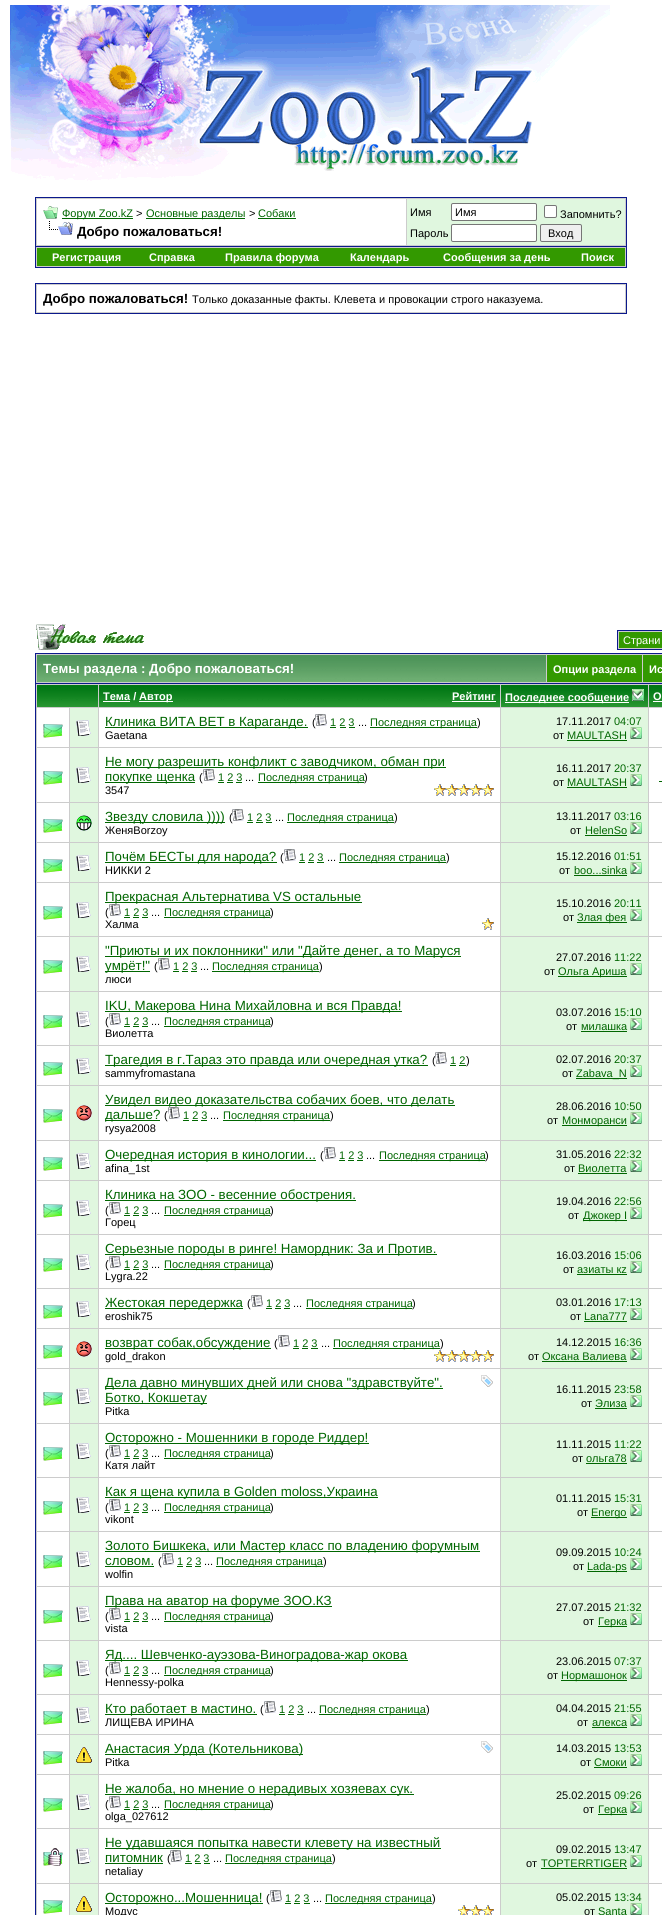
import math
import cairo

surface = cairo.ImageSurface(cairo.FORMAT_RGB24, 662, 1915)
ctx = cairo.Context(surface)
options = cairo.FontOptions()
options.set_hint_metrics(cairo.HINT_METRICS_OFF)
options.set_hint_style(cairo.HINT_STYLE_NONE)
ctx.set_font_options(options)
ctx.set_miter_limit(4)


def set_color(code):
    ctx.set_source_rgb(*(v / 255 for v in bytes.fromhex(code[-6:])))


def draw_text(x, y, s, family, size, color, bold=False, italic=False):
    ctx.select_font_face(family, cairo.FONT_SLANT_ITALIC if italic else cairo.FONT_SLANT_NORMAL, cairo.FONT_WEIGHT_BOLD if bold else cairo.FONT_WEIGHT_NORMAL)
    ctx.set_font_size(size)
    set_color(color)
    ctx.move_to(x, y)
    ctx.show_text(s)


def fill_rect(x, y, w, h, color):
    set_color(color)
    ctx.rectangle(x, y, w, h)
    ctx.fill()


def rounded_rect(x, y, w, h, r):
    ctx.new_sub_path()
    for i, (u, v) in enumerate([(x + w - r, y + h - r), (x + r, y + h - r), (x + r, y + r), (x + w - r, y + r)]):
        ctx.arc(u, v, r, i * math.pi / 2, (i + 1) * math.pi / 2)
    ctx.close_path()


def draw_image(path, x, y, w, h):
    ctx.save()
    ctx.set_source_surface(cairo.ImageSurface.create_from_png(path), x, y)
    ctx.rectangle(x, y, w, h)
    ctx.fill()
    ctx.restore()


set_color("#ffffff")
ctx.paint()
draw_image("assets/img1.png", 10, 5, 600, 176)
set_color("#cccccc")
ctx.rectangle(35.5, 197.5, 591, 49)
ctx.fill_preserve()
set_color("#0b198c")
ctx.set_line_width(1)
ctx.stroke()
fill_rect(37, 199, 369, 46, "#ffffff")
draw_image("assets/img2.png", 43, 206, 15, 13)
fill_rect(62, 218, 71, 1, "#006600")
draw_text(62, 217, "Форум Zoo.kZ", "Liberation Sans", 11, "#006600")
draw_text(136, 217, ">", "Liberation Sans", 11, "#000000")
fill_rect(146, 218, 99, 1, "#006600")
draw_text(146, 217, "Основные разделы", "Liberation Sans", 11, "#006600")
draw_text(249, 217, ">", "Liberation Sans", 11, "#000000")
draw_text(258, 217, "Собаки", "Liberation Sans", 11, "#006600")
fill_rect(258, 218, 38, 1, "#006600")
draw_image("assets/img3.png", 49, 221, 24, 14)
draw_text(77, 236, "Добро пожаловаться!", "Liberation Sans", 13.3, "#000000", bold=True)
fill_rect(407, 199, 218, 46, "#e0f7df")
draw_text(410, 216, "Имя", "Liberation Sans", 11, "#000000")
set_color("#ffffff")
rounded_rect(451.5, 203.5, 85, 17, 1.5)
ctx.fill_preserve()
set_color("#767676")
ctx.stroke()
draw_text(455, 216, "Имя", "Liberation Sans", 11, "#000000")
set_color("#ffffff")
rounded_rect(544.5, 205.5, 12, 12, 1.5)
ctx.fill_preserve()
set_color("#767676")
ctx.stroke()
draw_text(560, 218, "Запомнить?", "Liberation Sans", 11, "#000000")
draw_text(410, 237, "Пароль", "Liberation Sans", 11, "#000000")
set_color("#ffffff")
rounded_rect(451.5, 224.5, 85, 17, 1.5)
ctx.fill_preserve()
set_color("#767676")
ctx.stroke()
set_color("#efefef")
rounded_rect(540.5, 224.5, 41, 17, 1.5)
ctx.fill_preserve()
set_color("#767676")
ctx.stroke()
draw_text(548, 237, "Вход", "Liberation Sans", 11, "#000000")
fill_rect(36, 247, 590, 20, "#cccccc")
fill_rect(626, 247, 1, 21, "#0b198c")
fill_rect(35, 267, 592, 1, "#0b198c")
fill_rect(35, 247, 1, 21, "#0b198c")
fill_rect(37, 248, 588, 18, "#339900")
draw_text(52, 261, "Регистрация", "Liberation Sans", 11, "#ffffff", bold=True)
draw_text(149, 261, "Справка", "Liberation Sans", 11, "#ffffff", bold=True)
draw_text(225, 261, "Правила форума", "Liberation Sans", 11, "#ffffff", bold=True)
draw_text(350, 261, "Календарь", "Liberation Sans", 11, "#ffffff", bold=True)
draw_text(443, 261, "Сообщения за день", "Liberation Sans", 11, "#ffffff", bold=True)
draw_text(581, 261, "Поиск", "Liberation Sans", 11, "#ffffff", bold=True)
set_color("#cccccc")
ctx.rectangle(35.5, 283.5, 591, 30)
ctx.fill_preserve()
set_color("#0b198c")
ctx.stroke()
fill_rect(37, 285, 588, 27, "#ffffff")
draw_text(43, 303, "Добро пожаловаться!", "Liberation Sans", 13.3, "#000000", bold=True)
draw_text(192, 303, "Только доказанные факты. Клевета и провокации строго наказуема.", "Liberation Sans", 11, "#000000")
draw_image("assets/img4.png", 36, 624, 108, 26)
set_color("#cccccc")
ctx.rectangle(617.5, 630.5, 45, 19)
ctx.fill_preserve()
set_color("#0b198c")
ctx.stroke()
fill_rect(619, 632, 43, 16, "#339900")
draw_text(623, 644, "Страни", "Liberation Sans", 11, "#ffffff")
fill_rect(36, 654, 626, 29, "#cccccc")
fill_rect(35, 653, 627, 1, "#0b198c")
fill_rect(35, 653, 1, 30, "#0b198c")
draw_image("assets/img5.png", 37, 655, 509, 27)
draw_text(43, 673, "Темы раздела : Добро пожаловаться!", "Liberation Sans", 13.3, "#ffffff", bold=True)
fill_rect(547, 655, 95, 27, "#339900")
draw_text(553, 673, "Опции раздела", "Liberation Sans", 11, "#ffffff", bold=True)
fill_rect(643, 655, 19, 27, "#339900")
draw_text(649, 673, "Ис", "Liberation Sans", 11, "#ffffff", bold=True)
set_color("#cccccc")
ctx.rectangle(35.5, 683.5, 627, 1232)
ctx.fill_preserve()
set_color("#0b198c")
ctx.stroke()
draw_image("assets/img6.png", 37, 685, 61, 22)
draw_image("assets/img7.png", 99, 685, 401, 22)
draw_text(103, 700, "Тема /", "Liberation Sans", 11, "#ffffff", bold=True)
fill_rect(103, 701, 27, 1, "#ffffff")
fill_rect(139, 701, 34, 1, "#ffffff")
draw_text(139, 700, "Автор", "Liberation Sans", 11, "#ffffff", bold=True)
draw_text(452, 700, "Рейтинг", "Liberation Sans", 11, "#ffffff", bold=True)
fill_rect(452, 701, 44, 1, "#ffffff")
draw_image("assets/img8.png", 501, 685, 147, 22)
fill_rect(505, 702, 124, 1, "#ffffff")
draw_text(505, 701, "Последнее сообщение", "Liberation Sans", 11, "#ffffff", bold=True)
draw_image("assets/img9.png", 632, 689, 12, 12)
draw_image("assets/img10.png", 649, 685, 13, 22)
draw_text(653, 700, "О", "Liberation Sans", 11, "#ffffff", bold=True)
fill_rect(653, 701, 9, 1, "#ffffff")
fill_rect(37, 708, 32, 39, "#ffffff")
draw_image("assets/img11.png", 43, 724, 20, 14)
fill_rect(70, 708, 28, 39, "#e0f7df")
draw_image("assets/img12.png", 76, 720, 15, 16)
fill_rect(99, 708, 401, 39, "#ffffff")
fill_rect(105, 727, 203, 1, "#006600")
draw_text(105, 726, "Клиника ВИТА ВЕТ в Караганде.", "Liberation Sans", 13.3, "#006600")
draw_text(312, 726, "(", "Liberation Sans", 11, "#000000")
draw_image("assets/img13.png", 315, 714, 12, 12)
draw_text(330, 726, "1 2 3", "Liberation Sans", 11, "#006600")
fill_rect(330, 727, 6, 1, "#006600")
fill_rect(340, 727, 6, 1, "#006600")
draw_text(358, 726, "...", "Liberation Sans", 11, "#000000")
fill_rect(349, 727, 6, 1, "#006600")
fill_rect(370, 727, 107, 1, "#006600")
draw_text(370, 726, "Последняя страница", "Liberation Sans", 11, "#006600")
draw_text(477, 726, ")", "Liberation Sans", 11, "#000000")
draw_text(105, 739, "Gaetana", "Liberation Sans", 11, "#000000")
fill_rect(501, 708, 147, 39, "#e0f7df")
draw_text(556, 725, "17.11.2017", "Liberation Sans", 11, "#000000")
draw_text(614, 725, "04:07", "Liberation Sans", 11, "#006600")
draw_text(553, 739, "от", "Liberation Sans", 11, "#000000")
draw_text(567, 739, "MAULTASH", "Liberation Sans", 11, "#006600")
fill_rect(567, 740, 60, 1, "#006600")
draw_image("assets/img14.png", 630, 727, 12, 12)
fill_rect(649, 708, 13, 39, "#ffffff")
fill_rect(37, 748, 32, 54, "#ffffff")
draw_image("assets/img11.png", 43, 771, 20, 14)
fill_rect(70, 748, 28, 54, "#e0f7df")
draw_image("assets/img12.png", 76, 767, 15, 16)
fill_rect(99, 748, 401, 54, "#ffffff")
fill_rect(105, 767, 341, 1, "#006600")
draw_text(105, 766, "Не могу разрешить конфликт с заводчиком, обман при", "Liberation Sans", 13.3, "#006600")
fill_rect(105, 782, 90, 1, "#006600")
draw_text(105, 781, "покупке щенка", "Liberation Sans", 13.3, "#006600")
draw_text(199, 781, "(", "Liberation Sans", 11, "#000000")
draw_image("assets/img13.png", 203, 769, 12, 12)
draw_text(218, 781, "1 2 3", "Liberation Sans", 11, "#006600")
fill_rect(218, 782, 6, 1, "#006600")
fill_rect(227, 782, 6, 1, "#006600")
draw_text(245, 781, "...", "Liberation Sans", 11, "#000000")
fill_rect(236, 782, 6, 1, "#006600")
fill_rect(258, 782, 106, 1, "#006600")
draw_text(258, 781, "Последняя страница", "Liberation Sans", 11, "#006600")
draw_text(364, 781, ")", "Liberation Sans", 11, "#000000")
draw_text(105, 794, "3547", "Liberation Sans", 11, "#000000")
draw_image("assets/img15.png", 434, 784, 60, 12)
fill_rect(501, 748, 147, 54, "#e0f7df")
draw_text(556, 772, "16.11.2017", "Liberation Sans", 11, "#000000")
draw_text(614, 772, "20:37", "Liberation Sans", 11, "#006600")
draw_text(553, 786, "от", "Liberation Sans", 11, "#000000")
draw_text(567, 786, "MAULTASH", "Liberation Sans", 11, "#006600")
fill_rect(567, 787, 60, 1, "#006600")
draw_image("assets/img14.png", 630, 774, 12, 12)
fill_rect(649, 748, 13, 54, "#ffffff")
fill_rect(659, 781, 3, 1, "#006600")
fill_rect(37, 803, 32, 39, "#ffffff")
draw_image("assets/img11.png", 43, 819, 20, 14)
fill_rect(70, 803, 28, 39, "#e0f7df")
draw_image("assets/img16.png", 76, 815, 16, 16)
fill_rect(99, 803, 401, 39, "#ffffff")
fill_rect(105, 822, 120, 1, "#006600")
draw_text(105, 821, "Звезду словила ))))", "Liberation Sans", 13.3, "#006600")
draw_text(229, 821, "(", "Liberation Sans", 11, "#000000")
draw_image("assets/img13.png", 232, 809, 12, 12)
draw_text(247, 821, "1 2 3", "Liberation Sans", 11, "#006600")
fill_rect(247, 822, 6, 1, "#006600")
fill_rect(256, 822, 7, 1, "#006600")
draw_text(275, 821, "...", "Liberation Sans", 11, "#000000")
fill_rect(266, 822, 6, 1, "#006600")
fill_rect(287, 822, 107, 1, "#006600")
draw_text(287, 821, "Последняя страница", "Liberation Sans", 11, "#006600")
draw_text(394, 821, ")", "Liberation Sans", 11, "#000000")
draw_text(105, 834, "ЖеняBorzoy", "Liberation Sans", 11, "#000000")
fill_rect(501, 803, 147, 39, "#e0f7df")
draw_text(556, 820, "13.11.2017", "Liberation Sans", 11, "#000000")
draw_text(614, 820, "03:16", "Liberation Sans", 11, "#006600")
draw_text(570, 834, "от", "Liberation Sans", 11, "#000000")
draw_text(585, 834, "HelenSo", "Liberation Sans", 11, "#006600")
fill_rect(585, 835, 42, 1, "#006600")
draw_image("assets/img14.png", 630, 822, 12, 12)
fill_rect(649, 803, 13, 39, "#ffffff")
fill_rect(37, 843, 32, 39, "#ffffff")
draw_image("assets/img11.png", 43, 859, 20, 14)
fill_rect(70, 843, 28, 39, "#e0f7df")
draw_image("assets/img12.png", 76, 855, 15, 16)
fill_rect(99, 843, 401, 39, "#ffffff")
fill_rect(105, 862, 172, 1, "#006600")
draw_text(105, 861, "Почём БЕСТы для народа?", "Liberation Sans", 13.3, "#006600")
draw_text(280, 861, "(", "Liberation Sans", 11, "#000000")
draw_image("assets/img13.png", 284, 849, 12, 12)
draw_text(299, 861, "1 2 3", "Liberation Sans", 11, "#006600")
fill_rect(299, 862, 6, 1, "#006600")
fill_rect(308, 862, 6, 1, "#006600")
draw_text(327, 861, "...", "Liberation Sans", 11, "#000000")
fill_rect(317, 862, 7, 1, "#006600")
fill_rect(339, 862, 107, 1, "#006600")
draw_text(339, 861, "Последняя страница", "Liberation Sans", 11, "#006600")
draw_text(446, 861, ")", "Liberation Sans", 11, "#000000")
draw_text(105, 874, "НИККИ 2", "Liberation Sans", 11, "#000000")
fill_rect(501, 843, 147, 39, "#e0f7df")
draw_text(556, 860, "15.12.2016", "Liberation Sans", 11, "#000000")
draw_text(614, 860, "01:51", "Liberation Sans", 11, "#006600")
draw_text(559, 874, "от", "Liberation Sans", 11, "#000000")
draw_text(574, 874, "boo...sinka", "Liberation Sans", 11, "#006600")
fill_rect(574, 875, 53, 1, "#006600")
draw_image("assets/img14.png", 630, 862, 12, 12)
fill_rect(649, 843, 13, 39, "#ffffff")
fill_rect(37, 883, 32, 53, "#ffffff")
draw_image("assets/img11.png", 43, 906, 20, 14)
fill_rect(70, 883, 28, 53, "#e0f7df")
draw_image("assets/img12.png", 76, 902, 15, 16)
fill_rect(99, 883, 401, 53, "#ffffff")
fill_rect(105, 902, 257, 1, "#006600")
draw_text(105, 901, "Прекрасная Альтернатива VS остальные", "Liberation Sans", 13.3, "#006600")
draw_text(105, 916, "(", "Liberation Sans", 11, "#000000")
draw_image("assets/img13.png", 109, 904, 12, 12)
draw_text(124, 916, "1 2 3", "Liberation Sans", 11, "#006600")
fill_rect(124, 917, 6, 1, "#006600")
fill_rect(133, 917, 6, 1, "#006600")
draw_text(151, 916, "...", "Liberation Sans", 11, "#000000")
fill_rect(142, 917, 6, 1, "#006600")
fill_rect(164, 917, 106, 1, "#006600")
draw_text(164, 916, "Последняя страница", "Liberation Sans", 11, "#006600")
draw_text(270, 916, ")", "Liberation Sans", 11, "#000000")
draw_text(105, 928, "Халма", "Liberation Sans", 11, "#000000")
draw_image("assets/img17.png", 482, 918, 12, 12)
fill_rect(501, 883, 147, 53, "#e0f7df")
draw_text(556, 907, "15.10.2016", "Liberation Sans", 11, "#000000")
draw_text(614, 907, "20:11", "Liberation Sans", 11, "#006600")
draw_text(563, 921, "от", "Liberation Sans", 11, "#000000")
fill_rect(577, 922, 50, 1, "#006600")
draw_text(577, 921, "Злая фея", "Liberation Sans", 11, "#006600")
draw_image("assets/img14.png", 630, 909, 12, 12)
fill_rect(649, 883, 13, 53, "#ffffff")
fill_rect(37, 937, 32, 54, "#ffffff")
draw_image("assets/img11.png", 43, 960, 20, 14)
fill_rect(70, 937, 28, 54, "#e0f7df")
draw_image("assets/img12.png", 76, 956, 15, 16)
fill_rect(99, 937, 401, 54, "#ffffff")
fill_rect(105, 956, 356, 1, "#006600")
draw_text(105, 955, "\"Приюты и их поклонники\" или \"Дайте денег, а то Маруся", "Liberation Sans", 13.3, "#006600")
fill_rect(105, 971, 45, 1, "#006600")
draw_text(105, 970, "умрёт!\"", "Liberation Sans", 13.3, "#006600")
draw_text(154, 970, "(", "Liberation Sans", 11, "#000000")
draw_image("assets/img13.png", 158, 958, 12, 12)
draw_text(173, 970, "1 2 3", "Liberation Sans", 11, "#006600")
fill_rect(173, 971, 6, 1, "#006600")
fill_rect(182, 971, 6, 1, "#006600")
draw_text(200, 970, "...", "Liberation Sans", 11, "#000000")
fill_rect(191, 971, 6, 1, "#006600")
fill_rect(212, 971, 107, 1, "#006600")
draw_text(212, 970, "Последняя страница", "Liberation Sans", 11, "#006600")
draw_text(319, 970, ")", "Liberation Sans", 11, "#000000")
draw_text(105, 983, "люси", "Liberation Sans", 11, "#000000")
fill_rect(501, 937, 147, 54, "#e0f7df")
draw_text(556, 961, "27.07.2016", "Liberation Sans", 11, "#000000")
draw_text(614, 961, "11:22", "Liberation Sans", 11, "#006600")
draw_text(544, 975, "от", "Liberation Sans", 11, "#000000")
fill_rect(558, 976, 69, 1, "#006600")
draw_text(558, 975, "Ольга Ариша", "Liberation Sans", 11, "#006600")
draw_image("assets/img14.png", 630, 963, 12, 12)
fill_rect(649, 937, 13, 54, "#ffffff")
fill_rect(37, 992, 32, 53, "#ffffff")
draw_image("assets/img11.png", 43, 1015, 20, 14)
fill_rect(70, 992, 28, 53, "#e0f7df")
draw_image("assets/img12.png", 76, 1011, 15, 16)
fill_rect(99, 992, 401, 53, "#ffffff")
fill_rect(105, 1011, 297, 1, "#006600")
draw_text(105, 1010, "IKU, Макерова Нина Михайловна и вся Правда!", "Liberation Sans", 13.3, "#006600")
draw_text(105, 1025, "(", "Liberation Sans", 11, "#000000")
draw_image("assets/img13.png", 109, 1013, 12, 12)
draw_text(124, 1025, "1 2 3", "Liberation Sans", 11, "#006600")
fill_rect(124, 1026, 6, 1, "#006600")
fill_rect(133, 1026, 6, 1, "#006600")
draw_text(151, 1025, "...", "Liberation Sans", 11, "#000000")
fill_rect(142, 1026, 6, 1, "#006600")
fill_rect(164, 1026, 106, 1, "#006600")
draw_text(164, 1025, "Последняя страница", "Liberation Sans", 11, "#006600")
draw_text(270, 1025, ")", "Liberation Sans", 11, "#000000")
draw_text(105, 1037, "Виолетта", "Liberation Sans", 11, "#000000")
fill_rect(501, 992, 147, 53, "#e0f7df")
draw_text(556, 1016, "03.07.2016", "Liberation Sans", 11, "#000000")
draw_text(614, 1016, "15:10", "Liberation Sans", 11, "#006600")
draw_text(566, 1030, "от", "Liberation Sans", 11, "#000000")
draw_text(581, 1030, "милашка", "Liberation Sans", 11, "#006600")
fill_rect(581, 1031, 46, 1, "#006600")
draw_image("assets/img14.png", 630, 1018, 12, 12)
fill_rect(649, 992, 13, 53, "#ffffff")
fill_rect(37, 1046, 32, 39, "#ffffff")
draw_image("assets/img11.png", 43, 1062, 20, 14)
fill_rect(70, 1046, 28, 39, "#e0f7df")
draw_image("assets/img12.png", 76, 1058, 15, 16)
fill_rect(99, 1046, 401, 39, "#ffffff")
fill_rect(105, 1065, 323, 1, "#006600")
draw_text(105, 1064, "Трагедия в г.Тараз это правда или очередная утка?", "Liberation Sans", 13.3, "#006600")
draw_text(432, 1064, "(", "Liberation Sans", 11, "#000000")
draw_image("assets/img13.png", 435, 1052, 12, 12)
draw_text(450, 1064, "1 2", "Liberation Sans", 11, "#006600")
fill_rect(450, 1065, 6, 1, "#006600")
fill_rect(459, 1065, 7, 1, "#006600")
draw_text(466, 1064, ")", "Liberation Sans", 11, "#000000")
draw_text(105, 1077, "sammyfromastana", "Liberation Sans", 11, "#000000")
fill_rect(501, 1046, 147, 39, "#e0f7df")
draw_text(556, 1063, "02.07.2016", "Liberation Sans", 11, "#000000")
draw_text(614, 1063, "20:37", "Liberation Sans", 11, "#006600")
draw_text(562, 1077, "от", "Liberation Sans", 11, "#000000")
fill_rect(576, 1078, 51, 1, "#006600")
draw_text(576, 1077, "Zabava_N", "Liberation Sans", 11, "#006600")
draw_image("assets/img14.png", 630, 1065, 12, 12)
fill_rect(649, 1046, 13, 39, "#ffffff")
fill_rect(37, 1086, 32, 54, "#ffffff")
draw_image("assets/img11.png", 43, 1109, 20, 14)
fill_rect(70, 1086, 28, 54, "#e0f7df")
draw_image("assets/img18.png", 76, 1105, 16, 16)
fill_rect(99, 1086, 401, 54, "#ffffff")
fill_rect(105, 1105, 350, 1, "#006600")
draw_text(105, 1104, "Увидел видео доказательства собачих боев, что делать", "Liberation Sans", 13.3, "#006600")
fill_rect(105, 1120, 55, 1, "#006600")
draw_text(105, 1119, "дальше?", "Liberation Sans", 13.3, "#006600")
draw_text(164, 1119, "(", "Liberation Sans", 11, "#000000")
draw_image("assets/img13.png", 168, 1107, 12, 12)
draw_text(183, 1119, "1 2 3", "Liberation Sans", 11, "#006600")
fill_rect(183, 1120, 6, 1, "#006600")
fill_rect(192, 1120, 6, 1, "#006600")
draw_text(210, 1119, "...", "Liberation Sans", 11, "#000000")
fill_rect(201, 1120, 6, 1, "#006600")
fill_rect(223, 1120, 107, 1, "#006600")
draw_text(223, 1119, "Последняя страница", "Liberation Sans", 11, "#006600")
draw_text(330, 1119, ")", "Liberation Sans", 11, "#000000")
draw_text(105, 1132, "rysya2008", "Liberation Sans", 11, "#000000")
fill_rect(501, 1086, 147, 54, "#e0f7df")
draw_text(556, 1110, "28.06.2016", "Liberation Sans", 11, "#000000")
draw_text(614, 1110, "10:50", "Liberation Sans", 11, "#006600")
draw_text(547, 1124, "от", "Liberation Sans", 11, "#000000")
fill_rect(562, 1125, 65, 1, "#006600")
draw_text(562, 1124, "Монморанси", "Liberation Sans", 11, "#006600")
draw_image("assets/img14.png", 630, 1112, 12, 12)
fill_rect(649, 1086, 13, 54, "#ffffff")
fill_rect(37, 1141, 32, 39, "#ffffff")
draw_image("assets/img11.png", 43, 1157, 20, 14)
fill_rect(70, 1141, 28, 39, "#e0f7df")
draw_image("assets/img12.png", 76, 1153, 15, 16)
fill_rect(99, 1141, 401, 39, "#ffffff")
fill_rect(105, 1160, 211, 1, "#006600")
draw_text(105, 1159, "Очередная история в кинологии...", "Liberation Sans", 13.3, "#006600")
draw_text(320, 1159, "(", "Liberation Sans", 11, "#000000")
draw_image("assets/img13.png", 324, 1147, 12, 12)
draw_text(339, 1159, "1 2 3", "Liberation Sans", 11, "#006600")
fill_rect(339, 1160, 6, 1, "#006600")
fill_rect(348, 1160, 6, 1, "#006600")
draw_text(366, 1159, "...", "Liberation Sans", 11, "#000000")
fill_rect(357, 1160, 6, 1, "#006600")
fill_rect(379, 1160, 106, 1, "#006600")
draw_text(379, 1159, "Последняя страница", "Liberation Sans", 11, "#006600")
draw_text(485, 1159, ")", "Liberation Sans", 11, "#000000")
draw_text(105, 1172, "afina_1st", "Liberation Sans", 11, "#000000")
fill_rect(501, 1141, 147, 39, "#e0f7df")
draw_text(556, 1158, "31.05.2016", "Liberation Sans", 11, "#000000")
draw_text(614, 1158, "22:32", "Liberation Sans", 11, "#006600")
draw_text(564, 1172, "от", "Liberation Sans", 11, "#000000")
draw_text(578, 1172, "Виолетта", "Liberation Sans", 11, "#006600")
fill_rect(578, 1173, 49, 1, "#006600")
draw_image("assets/img14.png", 630, 1160, 12, 12)
fill_rect(649, 1141, 13, 39, "#ffffff")
fill_rect(37, 1181, 32, 53, "#ffffff")
draw_image("assets/img11.png", 43, 1204, 20, 14)
fill_rect(70, 1181, 28, 53, "#e0f7df")
draw_image("assets/img12.png", 76, 1200, 15, 16)
fill_rect(99, 1181, 401, 53, "#ffffff")
fill_rect(105, 1200, 251, 1, "#006600")
draw_text(105, 1199, "Клиника на ЗОО - весенние обострения.", "Liberation Sans", 13.3, "#006600")
draw_text(105, 1214, "(", "Liberation Sans", 11, "#000000")
draw_image("assets/img13.png", 109, 1202, 12, 12)
draw_text(124, 1214, "1 2 3", "Liberation Sans", 11, "#006600")
fill_rect(124, 1215, 6, 1, "#006600")
fill_rect(133, 1215, 6, 1, "#006600")
draw_text(151, 1214, "...", "Liberation Sans", 11, "#000000")
fill_rect(142, 1215, 6, 1, "#006600")
fill_rect(164, 1215, 106, 1, "#006600")
draw_text(164, 1214, "Последняя страница", "Liberation Sans", 11, "#006600")
draw_text(270, 1214, ")", "Liberation Sans", 11, "#000000")
draw_text(105, 1226, "Горец", "Liberation Sans", 11, "#000000")
fill_rect(501, 1181, 147, 53, "#e0f7df")
draw_text(556, 1205, "19.04.2016", "Liberation Sans", 11, "#000000")
draw_text(614, 1205, "22:56", "Liberation Sans", 11, "#006600")
draw_text(568, 1219, "от", "Liberation Sans", 11, "#000000")
fill_rect(583, 1220, 44, 1, "#006600")
draw_text(583, 1219, "Джокер I", "Liberation Sans", 11, "#006600")
draw_image("assets/img14.png", 630, 1207, 12, 12)
fill_rect(649, 1181, 13, 53, "#ffffff")
fill_rect(37, 1235, 32, 53, "#ffffff")
draw_image("assets/img11.png", 43, 1258, 20, 14)
fill_rect(70, 1235, 28, 53, "#e0f7df")
draw_image("assets/img12.png", 76, 1254, 15, 16)
fill_rect(99, 1235, 401, 53, "#ffffff")
fill_rect(105, 1254, 332, 1, "#006600")
draw_text(105, 1253, "Серьезные породы в ринге! Намордник: За и Против.", "Liberation Sans", 13.3, "#006600")
draw_text(105, 1268, "(", "Liberation Sans", 11, "#000000")
draw_image("assets/img13.png", 109, 1256, 12, 12)
draw_text(124, 1268, "1 2 3", "Liberation Sans", 11, "#006600")
fill_rect(124, 1269, 6, 1, "#006600")
fill_rect(133, 1269, 6, 1, "#006600")
draw_text(151, 1268, "...", "Liberation Sans", 11, "#000000")
fill_rect(142, 1269, 6, 1, "#006600")
fill_rect(164, 1269, 106, 1, "#006600")
draw_text(164, 1268, "Последняя страница", "Liberation Sans", 11, "#006600")
draw_text(270, 1268, ")", "Liberation Sans", 11, "#000000")
draw_text(105, 1280, "Lygra.22", "Liberation Sans", 11, "#000000")
fill_rect(501, 1235, 147, 53, "#e0f7df")
draw_text(556, 1259, "16.03.2016", "Liberation Sans", 11, "#000000")
draw_text(614, 1259, "15:06", "Liberation Sans", 11, "#006600")
draw_text(563, 1273, "от", "Liberation Sans", 11, "#000000")
draw_text(577, 1273, "азиаты кz", "Liberation Sans", 11, "#006600")
fill_rect(577, 1274, 50, 1, "#006600")
draw_image("assets/img14.png", 630, 1261, 12, 12)
fill_rect(649, 1235, 13, 53, "#ffffff")
fill_rect(37, 1289, 32, 39, "#ffffff")
draw_image("assets/img11.png", 43, 1305, 20, 14)
fill_rect(70, 1289, 28, 39, "#e0f7df")
draw_image("assets/img12.png", 76, 1301, 15, 16)
fill_rect(99, 1289, 401, 39, "#ffffff")
fill_rect(105, 1308, 138, 1, "#006600")
draw_text(105, 1307, "Жестокая передержка", "Liberation Sans", 13.3, "#006600")
draw_text(247, 1307, "(", "Liberation Sans", 11, "#000000")
draw_image("assets/img13.png", 251, 1295, 12, 12)
draw_text(266, 1307, "1 2 3", "Liberation Sans", 11, "#006600")
fill_rect(266, 1308, 6, 1, "#006600")
fill_rect(275, 1308, 6, 1, "#006600")
draw_text(293, 1307, "...", "Liberation Sans", 11, "#000000")
fill_rect(284, 1308, 6, 1, "#006600")
fill_rect(306, 1308, 106, 1, "#006600")
draw_text(306, 1307, "Последняя страница", "Liberation Sans", 11, "#006600")
draw_text(412, 1307, ")", "Liberation Sans", 11, "#000000")
draw_text(105, 1320, "eroshik75", "Liberation Sans", 11, "#000000")
fill_rect(501, 1289, 147, 39, "#e0f7df")
draw_text(556, 1306, "03.01.2016", "Liberation Sans", 11, "#000000")
draw_text(614, 1306, "17:13", "Liberation Sans", 11, "#006600")
draw_text(570, 1320, "от", "Liberation Sans", 11, "#000000")
draw_text(584, 1320, "Lana777", "Liberation Sans", 11, "#006600")
fill_rect(584, 1321, 43, 1, "#006600")
draw_image("assets/img14.png", 630, 1308, 12, 12)
fill_rect(649, 1289, 13, 39, "#ffffff")
fill_rect(37, 1329, 32, 39, "#ffffff")
draw_image("assets/img11.png", 43, 1345, 20, 14)
fill_rect(70, 1329, 28, 39, "#e0f7df")
draw_image("assets/img18.png", 76, 1341, 16, 16)
fill_rect(99, 1329, 401, 39, "#ffffff")
fill_rect(105, 1348, 166, 1, "#006600")
draw_text(105, 1347, "возврат собак,обсуждение", "Liberation Sans", 13.3, "#006600")
draw_text(274, 1347, "(", "Liberation Sans", 11, "#000000")
draw_image("assets/img13.png", 278, 1335, 12, 12)
draw_text(293, 1347, "1 2 3", "Liberation Sans", 11, "#006600")
fill_rect(293, 1348, 6, 1, "#006600")
fill_rect(302, 1348, 6, 1, "#006600")
draw_text(321, 1347, "...", "Liberation Sans", 11, "#000000")
fill_rect(311, 1348, 7, 1, "#006600")
fill_rect(333, 1348, 107, 1, "#006600")
draw_text(333, 1347, "Последняя страница", "Liberation Sans", 11, "#006600")
draw_text(440, 1347, ")", "Liberation Sans", 11, "#000000")
draw_text(105, 1360, "gold_drakon", "Liberation Sans", 11, "#000000")
draw_image("assets/img15.png", 434, 1350, 60, 12)
fill_rect(501, 1329, 147, 39, "#e0f7df")
draw_text(556, 1346, "14.12.2015", "Liberation Sans", 11, "#000000")
draw_text(614, 1346, "16:36", "Liberation Sans", 11, "#006600")
draw_text(528, 1360, "от", "Liberation Sans", 11, "#000000")
draw_text(542, 1360, "Оксана Валиева", "Liberation Sans", 11, "#006600")
fill_rect(542, 1361, 85, 1, "#006600")
draw_image("assets/img14.png", 630, 1348, 12, 12)
fill_rect(649, 1329, 13, 39, "#ffffff")
fill_rect(37, 1369, 32, 54, "#ffffff")
draw_image("assets/img11.png", 43, 1392, 20, 14)
fill_rect(70, 1369, 28, 54, "#e0f7df")
draw_image("assets/img12.png", 76, 1388, 15, 16)
fill_rect(99, 1369, 401, 54, "#ffffff")
fill_rect(105, 1388, 338, 1, "#006600")
draw_text(105, 1387, "Дела давно минувших дней или снова \"здравствуйте\".", "Liberation Sans", 13.3, "#006600")
draw_image("assets/img19.png", 481, 1375, 12, 12)
fill_rect(105, 1403, 102, 1, "#006600")
draw_text(105, 1402, "Ботко, Кокшетау", "Liberation Sans", 13.3, "#006600")
draw_text(105, 1415, "Pitka", "Liberation Sans", 11, "#000000")
fill_rect(501, 1369, 147, 54, "#e0f7df")
draw_text(556, 1393, "16.11.2015", "Liberation Sans", 11, "#000000")
draw_text(614, 1393, "23:58", "Liberation Sans", 11, "#006600")
draw_text(581, 1407, "от", "Liberation Sans", 11, "#000000")
draw_text(595, 1407, "Элиза", "Liberation Sans", 11, "#006600")
fill_rect(595, 1408, 32, 1, "#006600")
draw_image("assets/img14.png", 630, 1395, 12, 12)
fill_rect(649, 1369, 13, 54, "#ffffff")
fill_rect(37, 1424, 32, 53, "#ffffff")
draw_image("assets/img11.png", 43, 1447, 20, 14)
fill_rect(70, 1424, 28, 53, "#e0f7df")
draw_image("assets/img12.png", 76, 1443, 15, 16)
fill_rect(99, 1424, 401, 53, "#ffffff")
fill_rect(105, 1443, 264, 1, "#006600")
draw_text(105, 1442, "Осторожно - Мошенники в городе Риддер!", "Liberation Sans", 13.3, "#006600")
draw_text(105, 1457, "(", "Liberation Sans", 11, "#000000")
draw_image("assets/img13.png", 109, 1445, 12, 12)
draw_text(124, 1457, "1 2 3", "Liberation Sans", 11, "#006600")
fill_rect(124, 1458, 6, 1, "#006600")
fill_rect(133, 1458, 6, 1, "#006600")
draw_text(151, 1457, "...", "Liberation Sans", 11, "#000000")
fill_rect(142, 1458, 6, 1, "#006600")
fill_rect(164, 1458, 106, 1, "#006600")
draw_text(164, 1457, "Последняя страница", "Liberation Sans", 11, "#006600")
draw_text(270, 1457, ")", "Liberation Sans", 11, "#000000")
draw_text(105, 1469, "Катя лайт", "Liberation Sans", 11, "#000000")
fill_rect(501, 1424, 147, 53, "#e0f7df")
draw_text(556, 1448, "11.11.2015", "Liberation Sans", 11, "#000000")
draw_text(614, 1448, "11:22", "Liberation Sans", 11, "#006600")
draw_text(572, 1462, "от", "Liberation Sans", 11, "#000000")
draw_text(586, 1462, "ольга78", "Liberation Sans", 11, "#006600")
fill_rect(586, 1463, 41, 1, "#006600")
draw_image("assets/img14.png", 630, 1450, 12, 12)
fill_rect(649, 1424, 13, 53, "#ffffff")
fill_rect(37, 1478, 32, 53, "#ffffff")
draw_image("assets/img11.png", 43, 1501, 20, 14)
fill_rect(70, 1478, 28, 53, "#e0f7df")
draw_image("assets/img12.png", 76, 1497, 15, 16)
fill_rect(99, 1478, 401, 53, "#ffffff")
fill_rect(105, 1497, 273, 1, "#006600")
draw_text(105, 1496, "Как я щена купила в Golden moloss,Украина", "Liberation Sans", 13.3, "#006600")
draw_text(105, 1511, "(", "Liberation Sans", 11, "#000000")
draw_image("assets/img13.png", 109, 1499, 12, 12)
draw_text(124, 1511, "1 2 3", "Liberation Sans", 11, "#006600")
fill_rect(124, 1512, 6, 1, "#006600")
fill_rect(133, 1512, 6, 1, "#006600")
draw_text(151, 1511, "...", "Liberation Sans", 11, "#000000")
fill_rect(142, 1512, 6, 1, "#006600")
fill_rect(164, 1512, 106, 1, "#006600")
draw_text(164, 1511, "Последняя страница", "Liberation Sans", 11, "#006600")
draw_text(270, 1511, ")", "Liberation Sans", 11, "#000000")
draw_text(105, 1523, "vikont", "Liberation Sans", 11, "#000000")
fill_rect(501, 1478, 147, 53, "#e0f7df")
draw_text(556, 1502, "01.11.2015", "Liberation Sans", 11, "#000000")
draw_text(614, 1502, "15:31", "Liberation Sans", 11, "#006600")
draw_text(577, 1516, "от", "Liberation Sans", 11, "#000000")
fill_rect(591, 1517, 36, 1, "#006600")
draw_text(591, 1516, "Energo", "Liberation Sans", 11, "#006600")
draw_image("assets/img14.png", 630, 1504, 12, 12)
fill_rect(649, 1478, 13, 53, "#ffffff")
fill_rect(37, 1532, 32, 54, "#ffffff")
draw_image("assets/img11.png", 43, 1555, 20, 14)
fill_rect(70, 1532, 28, 54, "#e0f7df")
draw_image("assets/img12.png", 76, 1551, 15, 16)
fill_rect(99, 1532, 401, 54, "#ffffff")
fill_rect(105, 1551, 375, 1, "#006600")
draw_text(105, 1550, "Золото Бишкека, или Мастер класс по владению форумным", "Liberation Sans", 13.3, "#006600")
draw_text(105, 1565, "словом.", "Liberation Sans", 13.3, "#006600")
fill_rect(105, 1566, 49, 1, "#006600")
draw_text(158, 1565, "(", "Liberation Sans", 11, "#000000")
draw_image("assets/img13.png", 162, 1553, 12, 12)
draw_text(177, 1565, "1 2 3", "Liberation Sans", 11, "#006600")
fill_rect(177, 1566, 6, 1, "#006600")
fill_rect(186, 1566, 6, 1, "#006600")
draw_text(204, 1565, "...", "Liberation Sans", 11, "#000000")
fill_rect(195, 1566, 6, 1, "#006600")
fill_rect(216, 1566, 107, 1, "#006600")
draw_text(216, 1565, "Последняя страница", "Liberation Sans", 11, "#006600")
draw_text(323, 1565, ")", "Liberation Sans", 11, "#000000")
draw_text(105, 1578, "wolfin", "Liberation Sans", 11, "#000000")
fill_rect(501, 1532, 147, 54, "#e0f7df")
draw_text(556, 1556, "09.09.2015", "Liberation Sans", 11, "#000000")
draw_text(614, 1556, "10:24", "Liberation Sans", 11, "#006600")
draw_text(573, 1570, "от", "Liberation Sans", 11, "#000000")
fill_rect(587, 1571, 40, 1, "#006600")
draw_text(587, 1570, "Lada-ps", "Liberation Sans", 11, "#006600")
draw_image("assets/img14.png", 630, 1558, 12, 12)
fill_rect(649, 1532, 13, 54, "#ffffff")
fill_rect(37, 1587, 32, 53, "#ffffff")
draw_image("assets/img11.png", 43, 1610, 20, 14)
fill_rect(70, 1587, 28, 53, "#e0f7df")
draw_image("assets/img12.png", 76, 1606, 15, 16)
fill_rect(99, 1587, 401, 53, "#ffffff")
fill_rect(105, 1606, 227, 1, "#006600")
draw_text(105, 1605, "Права на аватор на форуме ЗОО.КЗ", "Liberation Sans", 13.3, "#006600")
draw_text(105, 1620, "(", "Liberation Sans", 11, "#000000")
draw_image("assets/img13.png", 109, 1608, 12, 12)
draw_text(124, 1620, "1 2 3", "Liberation Sans", 11, "#006600")
fill_rect(124, 1621, 6, 1, "#006600")
fill_rect(133, 1621, 6, 1, "#006600")
draw_text(151, 1620, "...", "Liberation Sans", 11, "#000000")
fill_rect(142, 1621, 6, 1, "#006600")
fill_rect(164, 1621, 106, 1, "#006600")
draw_text(164, 1620, "Последняя страница", "Liberation Sans", 11, "#006600")
draw_text(270, 1620, ")", "Liberation Sans", 11, "#000000")
draw_text(105, 1632, "vista", "Liberation Sans", 11, "#000000")
fill_rect(501, 1587, 147, 53, "#e0f7df")
draw_text(556, 1611, "27.07.2015", "Liberation Sans", 11, "#000000")
draw_text(614, 1611, "21:32", "Liberation Sans", 11, "#006600")
draw_text(583, 1625, "от", "Liberation Sans", 11, "#000000")
fill_rect(598, 1626, 29, 1, "#006600")
draw_text(598, 1625, "Герка", "Liberation Sans", 11, "#006600")
draw_image("assets/img14.png", 630, 1613, 12, 12)
fill_rect(649, 1587, 13, 53, "#ffffff")
fill_rect(37, 1641, 32, 53, "#ffffff")
draw_image("assets/img11.png", 43, 1664, 20, 14)
fill_rect(70, 1641, 28, 53, "#e0f7df")
draw_image("assets/img12.png", 76, 1660, 15, 16)
fill_rect(99, 1641, 401, 53, "#ffffff")
fill_rect(105, 1660, 303, 1, "#006600")
draw_text(105, 1659, "Яд.... Шевченко-ауэзова-Виноградова-жар окова", "Liberation Sans", 13.3, "#006600")
draw_text(105, 1674, "(", "Liberation Sans", 11, "#000000")
draw_image("assets/img13.png", 109, 1662, 12, 12)
draw_text(124, 1674, "1 2 3", "Liberation Sans", 11, "#006600")
fill_rect(124, 1675, 6, 1, "#006600")
fill_rect(133, 1675, 6, 1, "#006600")
draw_text(151, 1674, "...", "Liberation Sans", 11, "#000000")
fill_rect(142, 1675, 6, 1, "#006600")
fill_rect(164, 1675, 106, 1, "#006600")
draw_text(164, 1674, "Последняя страница", "Liberation Sans", 11, "#006600")
draw_text(270, 1674, ")", "Liberation Sans", 11, "#000000")
draw_text(105, 1686, "Hennessy-polka", "Liberation Sans", 11, "#000000")
fill_rect(501, 1641, 147, 53, "#e0f7df")
draw_text(556, 1665, "23.06.2015", "Liberation Sans", 11, "#000000")
draw_text(614, 1665, "07:37", "Liberation Sans", 11, "#006600")
draw_text(547, 1679, "от", "Liberation Sans", 11, "#000000")
fill_rect(561, 1680, 66, 1, "#006600")
draw_text(561, 1679, "Нормашонок", "Liberation Sans", 11, "#006600")
draw_image("assets/img14.png", 630, 1667, 12, 12)
fill_rect(649, 1641, 13, 53, "#ffffff")
fill_rect(37, 1695, 32, 39, "#ffffff")
draw_image("assets/img11.png", 43, 1711, 20, 14)
fill_rect(70, 1695, 28, 39, "#e0f7df")
draw_image("assets/img12.png", 76, 1707, 15, 16)
fill_rect(99, 1695, 401, 39, "#ffffff")
fill_rect(105, 1714, 152, 1, "#006600")
draw_text(105, 1713, "Кто работает в мастино.", "Liberation Sans", 13.3, "#006600")
draw_text(260, 1713, "(", "Liberation Sans", 11, "#000000")
draw_image("assets/img13.png", 264, 1701, 12, 12)
draw_text(279, 1713, "1 2 3", "Liberation Sans", 11, "#006600")
fill_rect(279, 1714, 6, 1, "#006600")
fill_rect(288, 1714, 6, 1, "#006600")
draw_text(307, 1713, "...", "Liberation Sans", 11, "#000000")
fill_rect(297, 1714, 7, 1, "#006600")
fill_rect(319, 1714, 107, 1, "#006600")
draw_text(319, 1713, "Последняя страница", "Liberation Sans", 11, "#006600")
draw_text(426, 1713, ")", "Liberation Sans", 11, "#000000")
draw_text(105, 1726, "ЛИЩЕВА ИРИНА", "Liberation Sans", 11, "#000000")
fill_rect(501, 1695, 147, 39, "#e0f7df")
draw_text(556, 1712, "04.04.2015", "Liberation Sans", 11, "#000000")
draw_text(614, 1712, "21:55", "Liberation Sans", 11, "#006600")
draw_text(577, 1726, "от", "Liberation Sans", 11, "#000000")
draw_text(592, 1726, "алекса", "Liberation Sans", 11, "#006600")
fill_rect(592, 1727, 35, 1, "#006600")
draw_image("assets/img14.png", 630, 1714, 12, 12)
fill_rect(649, 1695, 13, 39, "#ffffff")
fill_rect(37, 1735, 32, 39, "#ffffff")
draw_image("assets/img11.png", 43, 1751, 20, 14)
fill_rect(70, 1735, 28, 39, "#e0f7df")
draw_image("assets/img20.png", 76, 1747, 16, 16)
fill_rect(99, 1735, 401, 39, "#ffffff")
fill_rect(105, 1754, 198, 1, "#006600")
draw_text(105, 1753, "Анастасия Урда (Котельникова)", "Liberation Sans", 13.3, "#006600")
draw_image("assets/img19.png", 481, 1741, 12, 12)
draw_text(105, 1766, "Pitka", "Liberation Sans", 11, "#000000")
fill_rect(501, 1735, 147, 39, "#e0f7df")
draw_text(556, 1752, "14.03.2015", "Liberation Sans", 11, "#000000")
draw_text(614, 1752, "13:53", "Liberation Sans", 11, "#006600")
draw_text(580, 1766, "от", "Liberation Sans", 11, "#000000")
draw_text(594, 1766, "Смоки", "Liberation Sans", 11, "#006600")
fill_rect(594, 1767, 33, 1, "#006600")
draw_image("assets/img14.png", 630, 1754, 12, 12)
fill_rect(649, 1735, 13, 39, "#ffffff")
fill_rect(37, 1775, 32, 53, "#ffffff")
draw_image("assets/img11.png", 43, 1798, 20, 14)
fill_rect(70, 1775, 28, 53, "#e0f7df")
draw_image("assets/img12.png", 76, 1794, 15, 16)
fill_rect(99, 1775, 401, 53, "#ffffff")
fill_rect(105, 1794, 309, 1, "#006600")
draw_text(105, 1793, "Не жалоба, но мнение о нерадивых хозяевах сук.", "Liberation Sans", 13.3, "#006600")
draw_text(105, 1808, "(", "Liberation Sans", 11, "#000000")
draw_image("assets/img13.png", 109, 1796, 12, 12)
draw_text(124, 1808, "1 2 3", "Liberation Sans", 11, "#006600")
fill_rect(124, 1809, 6, 1, "#006600")
fill_rect(133, 1809, 6, 1, "#006600")
draw_text(151, 1808, "...", "Liberation Sans", 11, "#000000")
fill_rect(142, 1809, 6, 1, "#006600")
fill_rect(164, 1809, 106, 1, "#006600")
draw_text(164, 1808, "Последняя страница", "Liberation Sans", 11, "#006600")
draw_text(270, 1808, ")", "Liberation Sans", 11, "#000000")
draw_text(105, 1820, "olga_027612", "Liberation Sans", 11, "#000000")
fill_rect(501, 1775, 147, 53, "#e0f7df")
draw_text(556, 1799, "25.02.2015", "Liberation Sans", 11, "#000000")
draw_text(614, 1799, "09:26", "Liberation Sans", 11, "#006600")
draw_text(583, 1813, "от", "Liberation Sans", 11, "#000000")
fill_rect(598, 1814, 29, 1, "#006600")
draw_text(598, 1813, "Герка", "Liberation Sans", 11, "#006600")
draw_image("assets/img14.png", 630, 1801, 12, 12)
fill_rect(649, 1775, 13, 53, "#ffffff")
fill_rect(37, 1829, 32, 54, "#ffffff")
draw_image("assets/img21.png", 43, 1848, 20, 18)
fill_rect(70, 1829, 28, 54, "#e0f7df")
draw_image("assets/img12.png", 76, 1848, 15, 16)
fill_rect(99, 1829, 401, 54, "#ffffff")
fill_rect(105, 1848, 336, 1, "#006600")
draw_text(105, 1847, "Не удавшаяся попытка навести клевету на известный", "Liberation Sans", 13.3, "#006600")
draw_text(105, 1862, "питомник", "Liberation Sans", 13.3, "#006600")
fill_rect(105, 1863, 58, 1, "#006600")
draw_text(167, 1862, "(", "Liberation Sans", 11, "#000000")
draw_image("assets/img13.png", 170, 1850, 12, 12)
draw_text(185, 1862, "1 2 3", "Liberation Sans", 11, "#006600")
fill_rect(185, 1863, 7, 1, "#006600")
fill_rect(195, 1863, 6, 1, "#006600")
draw_text(213, 1862, "...", "Liberation Sans", 11, "#000000")
fill_rect(204, 1863, 6, 1, "#006600")
fill_rect(225, 1863, 107, 1, "#006600")
draw_text(225, 1862, "Последняя страница", "Liberation Sans", 11, "#006600")
draw_text(332, 1862, ")", "Liberation Sans", 11, "#000000")
draw_text(105, 1875, "netaliay", "Liberation Sans", 11, "#000000")
fill_rect(501, 1829, 147, 54, "#e0f7df")
draw_text(556, 1853, "09.02.2015", "Liberation Sans", 11, "#000000")
draw_text(614, 1853, "13:47", "Liberation Sans", 11, "#006600")
draw_text(526, 1867, "от", "Liberation Sans", 11, "#000000")
draw_text(541, 1867, "TOPTERRTIGER", "Liberation Sans", 11, "#006600")
fill_rect(541, 1868, 86, 1, "#006600")
draw_image("assets/img14.png", 630, 1855, 12, 12)
fill_rect(649, 1829, 13, 54, "#ffffff")
fill_rect(37, 1884, 32, 31, "#ffffff")
draw_image("assets/img11.png", 43, 1900, 20, 14)
fill_rect(70, 1884, 28, 31, "#e0f7df")
draw_image("assets/img20.png", 76, 1896, 16, 16)
fill_rect(99, 1884, 401, 31, "#ffffff")
fill_rect(105, 1903, 158, 1, "#006600")
draw_text(105, 1902, "Осторожно...Мошенница!", "Liberation Sans", 13.3, "#006600")
draw_text(266, 1902, "(", "Liberation Sans", 11, "#000000")
draw_image("assets/img13.png", 270, 1890, 12, 12)
draw_text(285, 1902, "1 2 3", "Liberation Sans", 11, "#006600")
fill_rect(285, 1903, 6, 1, "#006600")
fill_rect(294, 1903, 6, 1, "#006600")
draw_text(313, 1902, "...", "Liberation Sans", 11, "#000000")
fill_rect(304, 1903, 6, 1, "#006600")
fill_rect(325, 1903, 107, 1, "#006600")
draw_text(325, 1902, "Последняя страница", "Liberation Sans", 11, "#006600")
draw_text(432, 1902, ")", "Liberation Sans", 11, "#000000")
draw_text(105, 1915, "Модус", "Liberation Sans", 11, "#000000")
draw_image("assets/img22.png", 458, 1905, 36, 10)
fill_rect(501, 1884, 147, 31, "#e0f7df")
draw_text(556, 1901, "05.02.2015", "Liberation Sans", 11, "#000000")
draw_text(614, 1901, "13:34", "Liberation Sans", 11, "#006600")
draw_text(584, 1915, "от", "Liberation Sans", 11, "#000000")
draw_text(598, 1915, "Santa", "Liberation Sans", 11, "#006600")
draw_image("assets/img14.png", 630, 1903, 12, 12)
fill_rect(649, 1884, 13, 31, "#ffffff")
surface.write_to_png("output.png")
